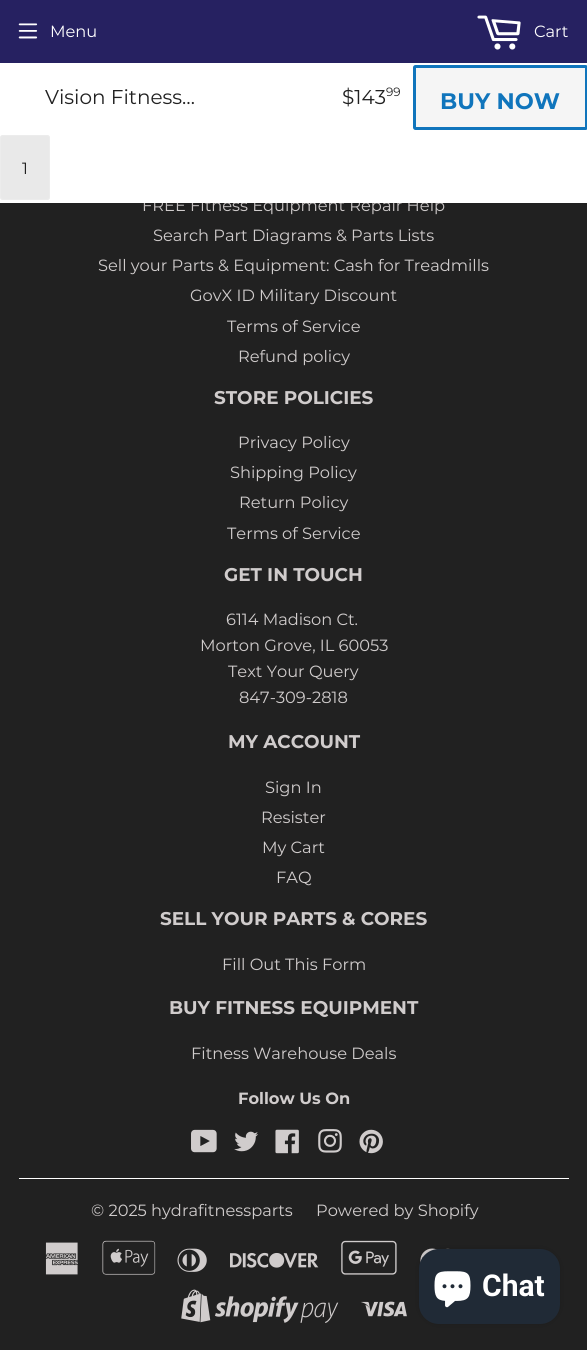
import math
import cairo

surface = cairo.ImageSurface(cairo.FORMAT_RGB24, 587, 1350)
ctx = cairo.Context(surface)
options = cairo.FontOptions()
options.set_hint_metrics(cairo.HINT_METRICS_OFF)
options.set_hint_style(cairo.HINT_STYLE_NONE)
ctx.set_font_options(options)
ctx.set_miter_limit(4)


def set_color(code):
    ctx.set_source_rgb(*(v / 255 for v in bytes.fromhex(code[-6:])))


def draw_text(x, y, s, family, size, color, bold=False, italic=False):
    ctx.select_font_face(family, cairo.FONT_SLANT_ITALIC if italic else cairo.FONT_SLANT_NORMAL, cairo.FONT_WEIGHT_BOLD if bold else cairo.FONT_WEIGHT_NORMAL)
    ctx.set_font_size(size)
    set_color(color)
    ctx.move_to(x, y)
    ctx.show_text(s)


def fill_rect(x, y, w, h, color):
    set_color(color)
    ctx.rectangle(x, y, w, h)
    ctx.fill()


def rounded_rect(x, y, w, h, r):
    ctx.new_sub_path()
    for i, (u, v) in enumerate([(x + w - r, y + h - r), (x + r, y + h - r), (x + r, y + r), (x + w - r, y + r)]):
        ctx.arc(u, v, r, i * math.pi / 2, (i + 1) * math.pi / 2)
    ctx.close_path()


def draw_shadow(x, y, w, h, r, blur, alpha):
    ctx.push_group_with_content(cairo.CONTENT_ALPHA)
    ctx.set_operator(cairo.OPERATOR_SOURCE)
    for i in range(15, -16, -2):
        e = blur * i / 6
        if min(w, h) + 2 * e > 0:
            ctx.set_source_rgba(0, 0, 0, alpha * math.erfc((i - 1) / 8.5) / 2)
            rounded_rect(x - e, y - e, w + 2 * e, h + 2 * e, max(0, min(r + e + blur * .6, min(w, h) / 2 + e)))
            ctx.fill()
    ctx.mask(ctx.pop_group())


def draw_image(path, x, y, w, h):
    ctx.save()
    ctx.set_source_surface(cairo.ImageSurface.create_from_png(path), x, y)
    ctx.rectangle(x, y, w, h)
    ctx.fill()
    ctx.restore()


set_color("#212121")
ctx.paint()
fill_rect(0, 0, 587, 63, "#262161")
draw_image("assets/img1.png", 18, 23, 20, 16)
draw_text(50, 37, "Menu", "Montserrat", 16.25, "#ffffff")
draw_image("assets/img2.png", 477, 15, 44, 35)
draw_text(534, 37, "Cart", "Montserrat", 16.25, "#ffffff")
draw_text(142, 211, "FREE Fitness Equipment Repair Help", "Montserrat", 16.25, "#d0cccc")
fill_rect(0, 63, 587, 140, "#ffffff")
draw_text(45, 104, "Vision Fitness…", "Montserrat", 20, "#212121")
draw_text(342, 104, "$143", "Montserrat", 20, "#212121")
draw_text(386, 96, "99", "Montserrat", 12, "#212121")
set_color("#f5f5f5")
rounded_rect(414.5, 66.5, 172, 62, 1)
ctx.fill_preserve()
set_color("#1075bc")
ctx.set_line_width(3)
ctx.stroke()
draw_text(440, 109, "BUY NOW", "Montserrat", 22.5, "#1075bc", bold=True)
set_color("#e9e9e9")
rounded_rect(0.5, 135.5, 49, 64, 2)
ctx.fill_preserve()
set_color("#ececec")
ctx.set_line_width(1)
ctx.stroke()
draw_text(22, 174, "1", "Montserrat", 16.25, "#212121")
gradient = cairo.LinearGradient(294, 202, 294, 211)
gradient.add_color_stop_rgba(0, 0, 0, 0, 0.09)
gradient.add_color_stop_rgba(1, 0, 0, 0, 0)
ctx.set_source(gradient)
ctx.rectangle(144, 203, 301, 6)
ctx.fill()
draw_text(153, 241, "Search Part Diagrams & Parts Lists", "Montserrat", 16.25, "#d0cccc")
draw_text(98, 271, "Sell your Parts & Equipment: Cash for Treadmills", "Montserrat", 16.25, "#d0cccc")
draw_text(190, 301, "GovX ID Military Discount", "Montserrat", 16.25, "#d0cccc")
draw_text(227, 332, "Terms of Service", "Montserrat", 16.25, "#d0cccc")
draw_text(238, 362, "Refund policy", "Montserrat", 16.25, "#d0cccc")
draw_text(214, 404, "STORE POLICIES", "Montserrat", 18.4, "#d0cccc", bold=True)
draw_text(238, 448, "Privacy Policy", "Montserrat", 16.25, "#d0cccc")
draw_text(230, 478, "Shipping Policy", "Montserrat", 16.25, "#d0cccc")
draw_text(239, 508, "Return Policy", "Montserrat", 16.25, "#d0cccc")
draw_text(227, 539, "Terms of Service", "Montserrat", 16.25, "#d0cccc")
draw_text(224, 581, "GET IN TOUCH", "Montserrat", 18.4, "#d0cccc", bold=True)
draw_text(226, 625, "6114 Madison Ct.", "Montserrat", 16.25, "#d0cccc")
draw_text(200, 651, "Morton Grove, IL 60053", "Montserrat", 16.25, "#d0cccc")
draw_text(228, 677, "Text Your Query", "Montserrat", 16.25, "#d0cccc")
draw_text(239, 703, "847-309-2818", "Montserrat", 16.25, "#d0cccc")
draw_text(228, 748, "MY ACCOUNT", "Montserrat", 18.4, "#d0cccc", bold=True)
draw_text(265, 793, "Sign In", "Montserrat", 16.25, "#d0cccc")
draw_text(261, 823, "Resister", "Montserrat", 16.25, "#d0cccc")
draw_text(262, 853, "My Cart", "Montserrat", 16.25, "#d0cccc")
draw_text(276, 883, "FAQ", "Montserrat", 16.25, "#d0cccc")
draw_text(160, 925, "SELL YOUR PARTS & CORES", "Montserrat", 18.4, "#d0cccc", bold=True)
draw_text(222, 970, "Fill Out This Form", "Montserrat", 16.25, "#d0cccc")
draw_text(169, 1014, "BUY FITNESS EQUIPMENT", "Montserrat", 18.4, "#d0cccc", bold=True)
draw_text(191, 1059, "Fitness Warehouse Deals", "Montserrat", 16.25, "#d0cccc")
draw_text(238, 1104, "Follow Us On", "Montserrat", 16.25, "#d0cccc", bold=True)
draw_image("assets/img3.png", 191, 1129, 26, 24)
draw_image("assets/img4.png", 234, 1131, 24, 21)
draw_image("assets/img5.png", 275, 1129, 24, 25)
draw_image("assets/img6.png", 318, 1129, 24, 24)
draw_image("assets/img7.png", 359, 1129, 24, 25)
fill_rect(19, 1178, 550, 1, "#ffffff")
draw_text(91, 1216, "© 2025 hydrafitnessparts", "Montserrat", 16.25, "#d0cccc")
draw_text(316, 1216, "Powered by Shopify", "Montserrat", 16.25, "#d0cccc")
draw_image("assets/img8.png", 45, 1242, 33, 33)
draw_image("assets/img9.png", 102, 1240, 54, 35)
draw_image("assets/img10.png", 177, 1248, 30, 24)
draw_image("assets/img11.png", 230, 1252, 89, 16)
draw_image("assets/img12.png", 341, 1240, 56, 35)
draw_image("assets/img13.png", 420, 1248, 30, 15)
draw_image("assets/img14.png", 181, 1289, 158, 34)
draw_image("assets/img15.png", 361, 1301, 46, 16)
set_color("#000000")
draw_shadow(419, 1249, 141, 75, 20, 3, 0.15)
set_color("#202a36")
rounded_rect(419, 1249, 141, 75, 20)
ctx.fill()
draw_image("assets/img16.png", 434, 1271, 37, 37)
draw_text(482, 1296, "Chat", "Roboto", 30, "#ffffff", bold=True)
surface.write_to_png("output.png")
